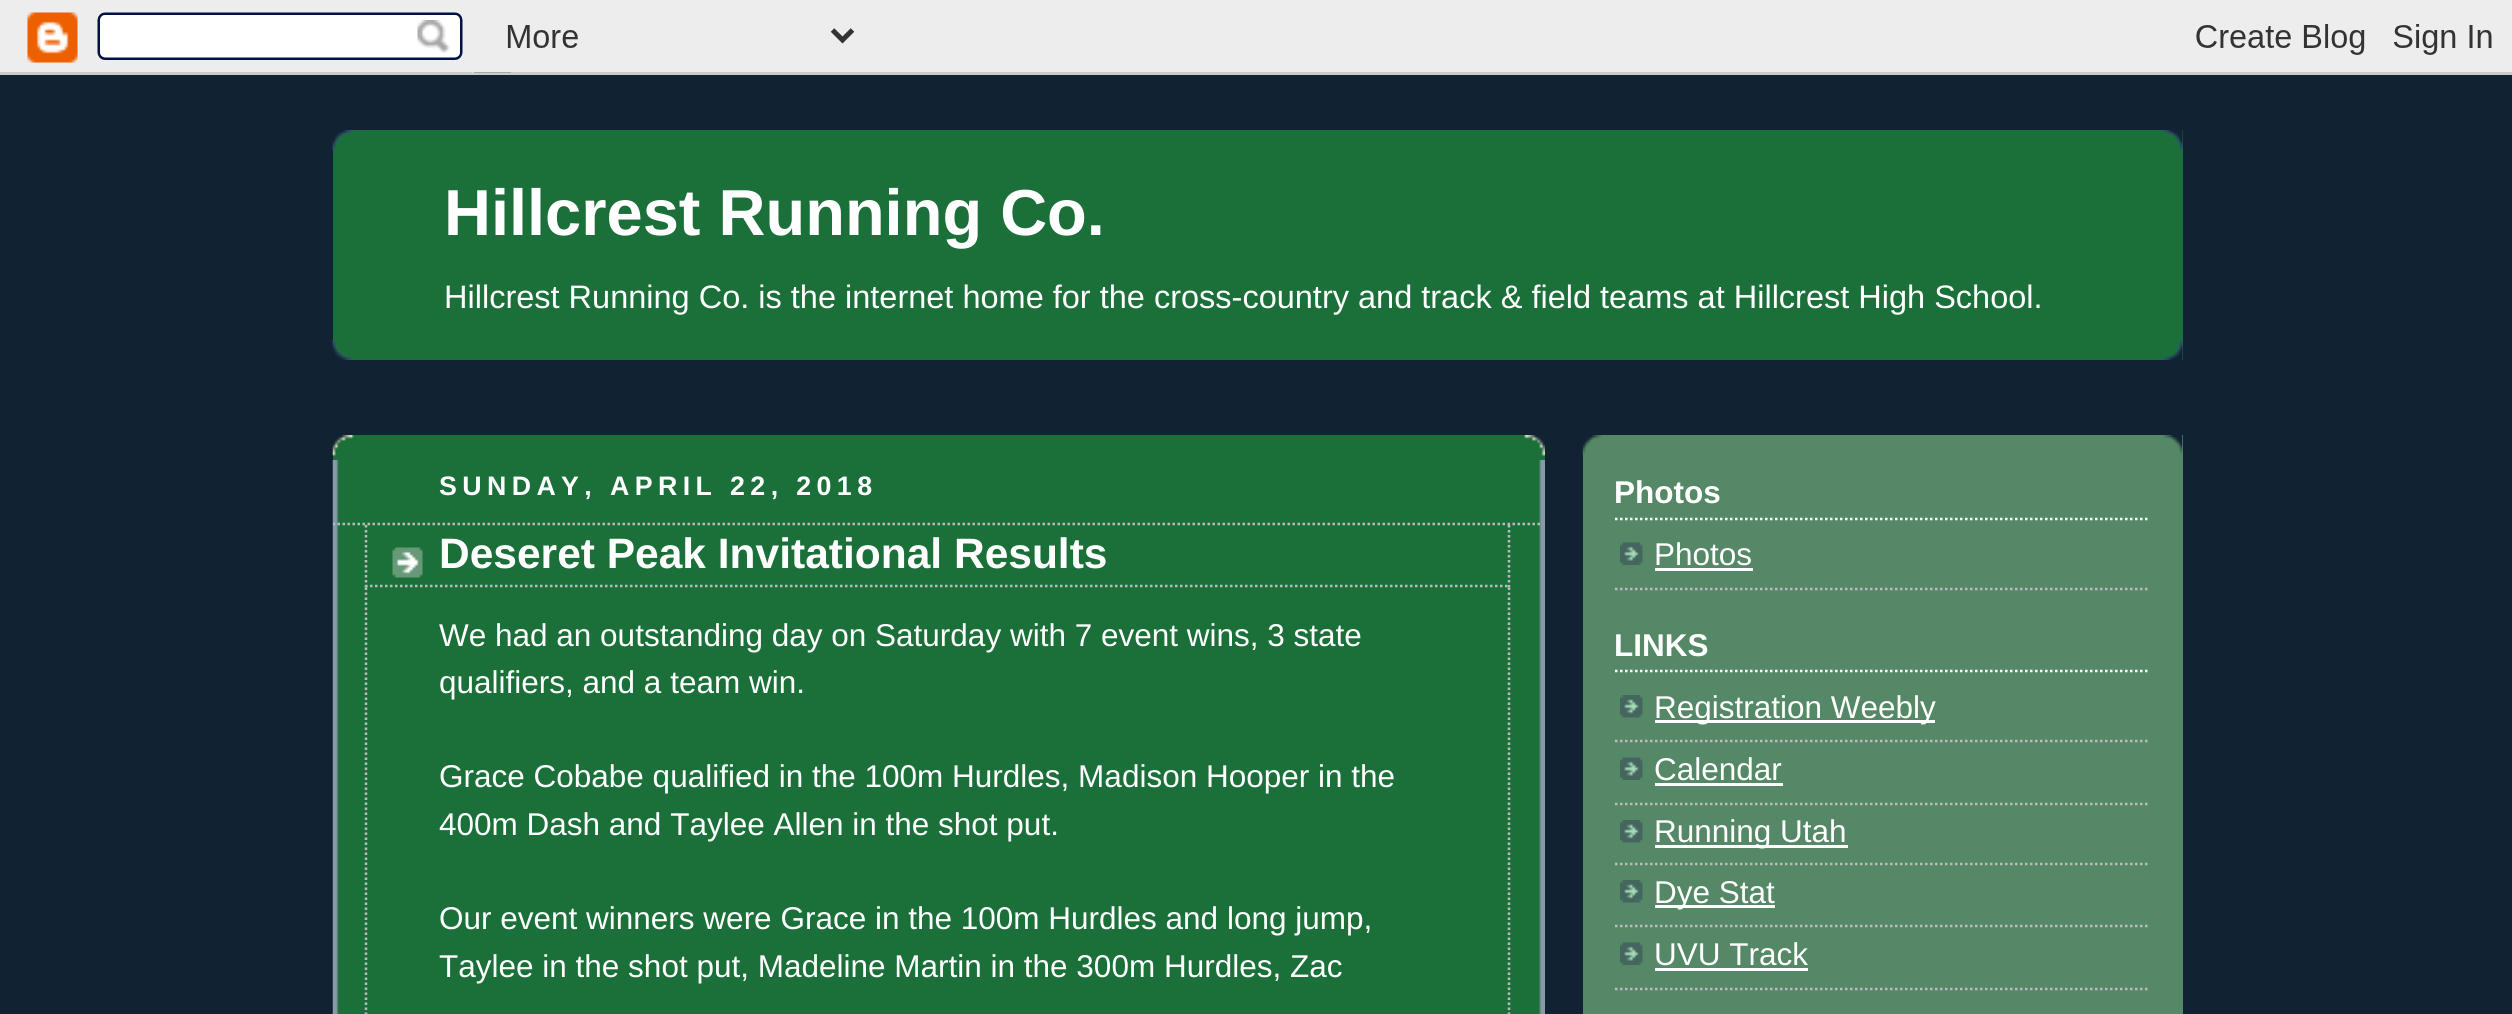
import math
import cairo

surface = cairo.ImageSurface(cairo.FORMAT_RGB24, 2512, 1014)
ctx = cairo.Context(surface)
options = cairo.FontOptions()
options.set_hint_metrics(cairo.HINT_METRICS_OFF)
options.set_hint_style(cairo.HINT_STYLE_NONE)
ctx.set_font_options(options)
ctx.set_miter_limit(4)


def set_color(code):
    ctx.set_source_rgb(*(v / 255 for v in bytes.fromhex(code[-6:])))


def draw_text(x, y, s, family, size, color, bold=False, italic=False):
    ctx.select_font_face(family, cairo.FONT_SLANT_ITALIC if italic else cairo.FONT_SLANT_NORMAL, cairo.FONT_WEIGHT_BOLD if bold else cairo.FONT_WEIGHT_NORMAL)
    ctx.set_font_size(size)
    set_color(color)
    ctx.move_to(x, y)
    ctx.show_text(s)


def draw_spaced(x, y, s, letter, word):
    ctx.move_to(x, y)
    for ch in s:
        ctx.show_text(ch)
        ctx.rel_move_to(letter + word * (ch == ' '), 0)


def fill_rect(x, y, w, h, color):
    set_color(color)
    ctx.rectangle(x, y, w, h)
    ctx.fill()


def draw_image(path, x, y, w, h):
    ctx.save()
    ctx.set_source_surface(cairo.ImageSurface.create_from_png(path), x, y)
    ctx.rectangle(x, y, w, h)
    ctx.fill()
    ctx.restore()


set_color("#112233")
ctx.paint()
draw_image("assets/img1.png", 0, 0, 2512, 75)
fill_rect(333, 130, 1850, 230, "#1b703a")
draw_image("assets/img2.png", 332, 130, 1851, 20)
draw_image("assets/img3.png", 332, 340, 1851, 20)
draw_text(444, 235, "Hillcrest Running Co.", "Liberation Sans", 65, "#ffffff", bold=True)
draw_text(444, 308, "Hillcrest Running Co. is the internet home for the cross-country and track & field teams at Hillcrest High School.", "Liberation Sans", 32.5, "#ffffff")
fill_rect(333, 435, 1212, 579, "#1b703a")
draw_image("assets/img4.png", 332, 435, 1213, 21)
draw_image("assets/img5.png", 332, 460, 1213, 554)
ctx.select_font_face("Liberation Sans", cairo.FONT_SLANT_NORMAL, cairo.FONT_WEIGHT_BOLD)
ctx.set_font_size(26.75)
set_color("#ffffff")
draw_spaced(439, 495, "SUNDAY, APRIL 22, 2018", 5.4, 0)
ctx.save()
ctx.rectangle(333, 435, 1212, 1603)
ctx.clip()
ctx.new_path()
ctx.move_to(332.5, 524)
ctx.line_to(1542.5, 524)
set_color("#bbbbbb")
ctx.set_line_width(2.5)
ctx.set_dash([2.5, 2.5])
ctx.stroke()
ctx.restore()
draw_image("assets/img6.png", 392, 547, 31, 31)
ctx.new_path()
ctx.move_to(1509, 525)
ctx.line_to(1509, 587.5)
set_color("#bbbbbb")
ctx.set_line_width(2.5)
ctx.set_dash([2.5, 2.5])
ctx.stroke()
ctx.new_path()
ctx.move_to(365, 586)
ctx.line_to(1510, 586)
ctx.stroke()
ctx.new_path()
ctx.move_to(366, 525)
ctx.line_to(366, 587.5)
ctx.stroke()
draw_text(439, 568, "Deseret Peak Invitational Results", "Liberation Sans", 42.5, "#ffffff", bold=True)
ctx.new_path()
ctx.move_to(1509, 587.5)
ctx.line_to(1509, 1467.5)
set_color("#bbbbbb")
ctx.stroke()
ctx.new_path()
ctx.move_to(366, 587.5)
ctx.line_to(366, 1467.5)
ctx.stroke()
draw_text(439, 646, "We had an outstanding day on Saturday with 7 event wins, 3 state", "Liberation Sans", 31.5, "#ffffff")
draw_text(439, 693, "qualifiers, and a team win.", "Liberation Sans", 31.5, "#ffffff")
draw_text(439, 787, "Grace Cobabe qualified in the 100m Hurdles, Madison Hooper in the", "Liberation Sans", 31.5, "#ffffff")
draw_text(439, 835, "400m Dash and Taylee Allen in the shot put.", "Liberation Sans", 31.5, "#ffffff")
draw_text(439, 929, "Our event winners were Grace in the 100m Hurdles and long jump,", "Liberation Sans", 31.5, "#ffffff")
draw_text(439, 977, "Taylee in the shot put, Madeline Martin in the 300m Hurdles, Zac", "Liberation Sans", 31.5, "#ffffff")
fill_rect(1583, 435, 600, 579, "#558866")
draw_image("assets/img7.png", 1582, 435, 601, 20)
ctx.new_path()
ctx.move_to(1615, 519)
ctx.line_to(2150, 519)
set_color("#ffffff")
ctx.stroke()
draw_text(1614, 503, "Photos", "Liberation Sans", 31.5, "#ffffff", bold=True)
draw_image("assets/img8.png", 1620, 542, 23, 23)
ctx.new_path()
ctx.move_to(1615, 589)
ctx.line_to(2150, 589)
set_color("#bbbbbb")
ctx.stroke()
draw_text(1654, 565, "Photos", "Liberation Sans", 31.5, "#ffffff")
fill_rect(1655, 568, 98, 3, "#ffffff")
ctx.new_path()
ctx.move_to(1615, 671)
ctx.line_to(2150, 671)
ctx.stroke()
draw_text(1614, 656, "LINKS", "Liberation Sans", 31.5, "#ffffff", bold=True)
draw_image("assets/img9.png", 1620, 695, 23, 23)
ctx.new_path()
ctx.move_to(1615, 741)
ctx.line_to(2150, 741)
set_color("#bbbbbb")
ctx.stroke()
fill_rect(1655, 720, 280, 3, "#ffffff")
draw_text(1654, 718, "Registration Weebly", "Liberation Sans", 31.5, "#ffffff")
draw_image("assets/img8.png", 1620, 757, 23, 23)
ctx.new_path()
ctx.move_to(1615, 804)
ctx.line_to(2150, 804)
set_color("#bbbbbb")
ctx.stroke()
draw_text(1654, 780, "Calendar", "Liberation Sans", 31.5, "#ffffff")
fill_rect(1655, 783, 128, 3, "#ffffff")
draw_image("assets/img9.png", 1620, 820, 23, 23)
ctx.new_path()
ctx.move_to(1615, 864)
ctx.line_to(2150, 864)
set_color("#bbbbbb")
ctx.stroke()
fill_rect(1655, 845, 193, 3, "#ffffff")
draw_text(1654, 842, "Running Utah", "Liberation Sans", 31.5, "#ffffff")
draw_image("assets/img9.png", 1620, 880, 23, 23)
ctx.new_path()
ctx.move_to(1615, 926)
ctx.line_to(2150, 926)
set_color("#bbbbbb")
ctx.stroke()
fill_rect(1655, 905, 120, 3, "#ffffff")
draw_text(1654, 903, "Dye Stat", "Liberation Sans", 31.5, "#ffffff")
draw_image("assets/img8.png", 1620, 942, 23, 23)
ctx.new_path()
ctx.move_to(1615, 989)
ctx.line_to(2150, 989)
set_color("#bbbbbb")
ctx.stroke()
draw_text(1654, 965, "UVU Track", "Liberation Sans", 31.5, "#ffffff")
fill_rect(1655, 968, 153, 3, "#ffffff")
surface.write_to_png("output.png")
